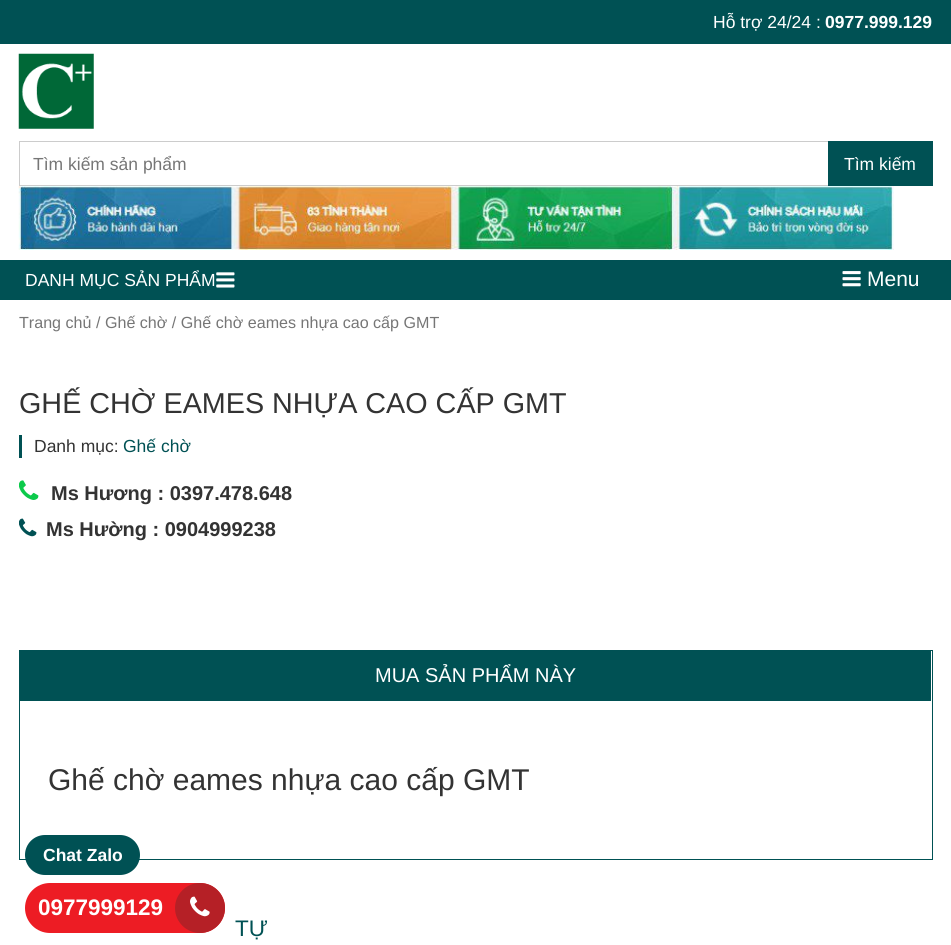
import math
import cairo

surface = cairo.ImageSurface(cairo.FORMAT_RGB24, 951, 945)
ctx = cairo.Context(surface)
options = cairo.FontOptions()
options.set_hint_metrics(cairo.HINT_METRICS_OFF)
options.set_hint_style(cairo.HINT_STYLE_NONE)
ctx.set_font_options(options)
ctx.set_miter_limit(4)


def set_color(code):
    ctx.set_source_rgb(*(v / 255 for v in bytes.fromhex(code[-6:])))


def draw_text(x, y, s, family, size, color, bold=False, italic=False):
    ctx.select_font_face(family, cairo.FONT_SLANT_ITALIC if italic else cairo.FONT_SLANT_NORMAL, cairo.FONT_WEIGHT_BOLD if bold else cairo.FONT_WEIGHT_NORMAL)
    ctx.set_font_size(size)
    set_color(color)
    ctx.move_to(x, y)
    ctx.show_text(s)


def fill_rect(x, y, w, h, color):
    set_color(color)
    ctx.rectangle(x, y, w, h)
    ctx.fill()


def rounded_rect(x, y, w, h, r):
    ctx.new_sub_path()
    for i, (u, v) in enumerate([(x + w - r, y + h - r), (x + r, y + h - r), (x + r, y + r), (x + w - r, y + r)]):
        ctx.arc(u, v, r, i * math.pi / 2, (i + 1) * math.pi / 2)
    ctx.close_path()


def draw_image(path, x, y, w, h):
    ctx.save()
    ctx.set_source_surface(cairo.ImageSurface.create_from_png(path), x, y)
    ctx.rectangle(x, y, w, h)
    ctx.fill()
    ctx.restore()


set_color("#ffffff")
ctx.paint()
fill_rect(0, 0, 951, 44, "#005154")
draw_text(713, 28, "Hỗ trợ 24/24 :", "Liberation Sans", 17.5, "#ffffff")
draw_text(825, 28, "0977.999.129", "Liberation Sans", 17.5, "#ffffff", bold=True)
draw_image("assets/img1.png", 18, 53, 76, 76)
fill_rect(19, 141, 809, 1, "#cccccc")
fill_rect(19, 185, 809, 1, "#cccccc")
fill_rect(19, 141, 1, 45, "#cccccc")
draw_text(33, 170, "Tìm kiếm sản phẩm", "Liberation Sans", 17.5, "#767676")
fill_rect(828, 141, 105, 45, "#005154")
draw_text(844, 170, "Tìm kiếm", "Liberation Sans", 17.5, "#ffffff")
draw_image("assets/img2.png", 18, 186, 876, 64)
fill_rect(0, 260, 951, 40, "#005154")
draw_text(25, 286, "DANH MỤC SẢN PHẨM", "Liberation Sans", 17.5, "#ffffff")
draw_image("assets/img3.png", 216, 272, 19, 16)
draw_image("assets/img4.png", 842, 271, 19, 16)
draw_text(867, 286, "Menu", "Liberation Sans", 21, "#ffffff")
draw_text(19, 328, "Trang chủ / Ghế chờ / Ghế chờ eames nhựa cao cấp GMT", "Liberation Sans", 16.1, "#767676")
draw_text(19, 413, "GHẾ CHỜ EAMES NHỰA CAO CẤP GMT", "Liberation Sans", 28.75, "#333333")
fill_rect(19, 435, 3, 23, "#005154")
draw_text(34, 452, "Danh mục:", "Liberation Sans", 17.5, "#333333")
draw_text(123, 452, "Ghế chờ", "Liberation Sans", 17.5, "#005154")
draw_image("assets/img5.png", 19, 480, 20, 20)
draw_text(51, 500, "Ms Hương : 0397.478.648", "Liberation Sans", 20, "#333333", bold=True)
draw_image("assets/img6.png", 19, 518, 18, 19)
draw_text(46, 536, "Ms Hường : 0904999238", "Liberation Sans", 20, "#333333", bold=True)
ctx.rectangle(19.5, 650.5, 913, 209)
set_color("#005154")
ctx.set_line_width(1)
ctx.stroke()
fill_rect(20, 651, 911, 50, "#005154")
draw_text(375, 682, "MUA SẢN PHẨM NÀY", "Liberation Sans", 20, "#ffffff")
draw_text(48, 790, "Ghế chờ eames nhựa cao cấp GMT", "Liberation Sans", 30, "#333333")
draw_text(235, 936, "TỰ", "Liberation Sans", 22.5, "#005154")
rounded_rect(25, 835, 115, 40, 20)
ctx.fill()
draw_text(43, 861, "Chat Zalo", "Liberation Sans", 17.5, "#ffffff", bold=True)
set_color("#ed1c24")
rounded_rect(25, 883, 200, 50, 25)
ctx.fill()
draw_text(38, 915, "0977999129", "Liberation Sans", 22.5, "#ffffff", bold=True)
set_color("#b52026")
ctx.new_path()
ctx.arc(200, 908, 25, 0, 2 * math.pi)
ctx.fill()
draw_image("assets/img7.png", 190, 896, 20, 21)
surface.write_to_png("output.png")
